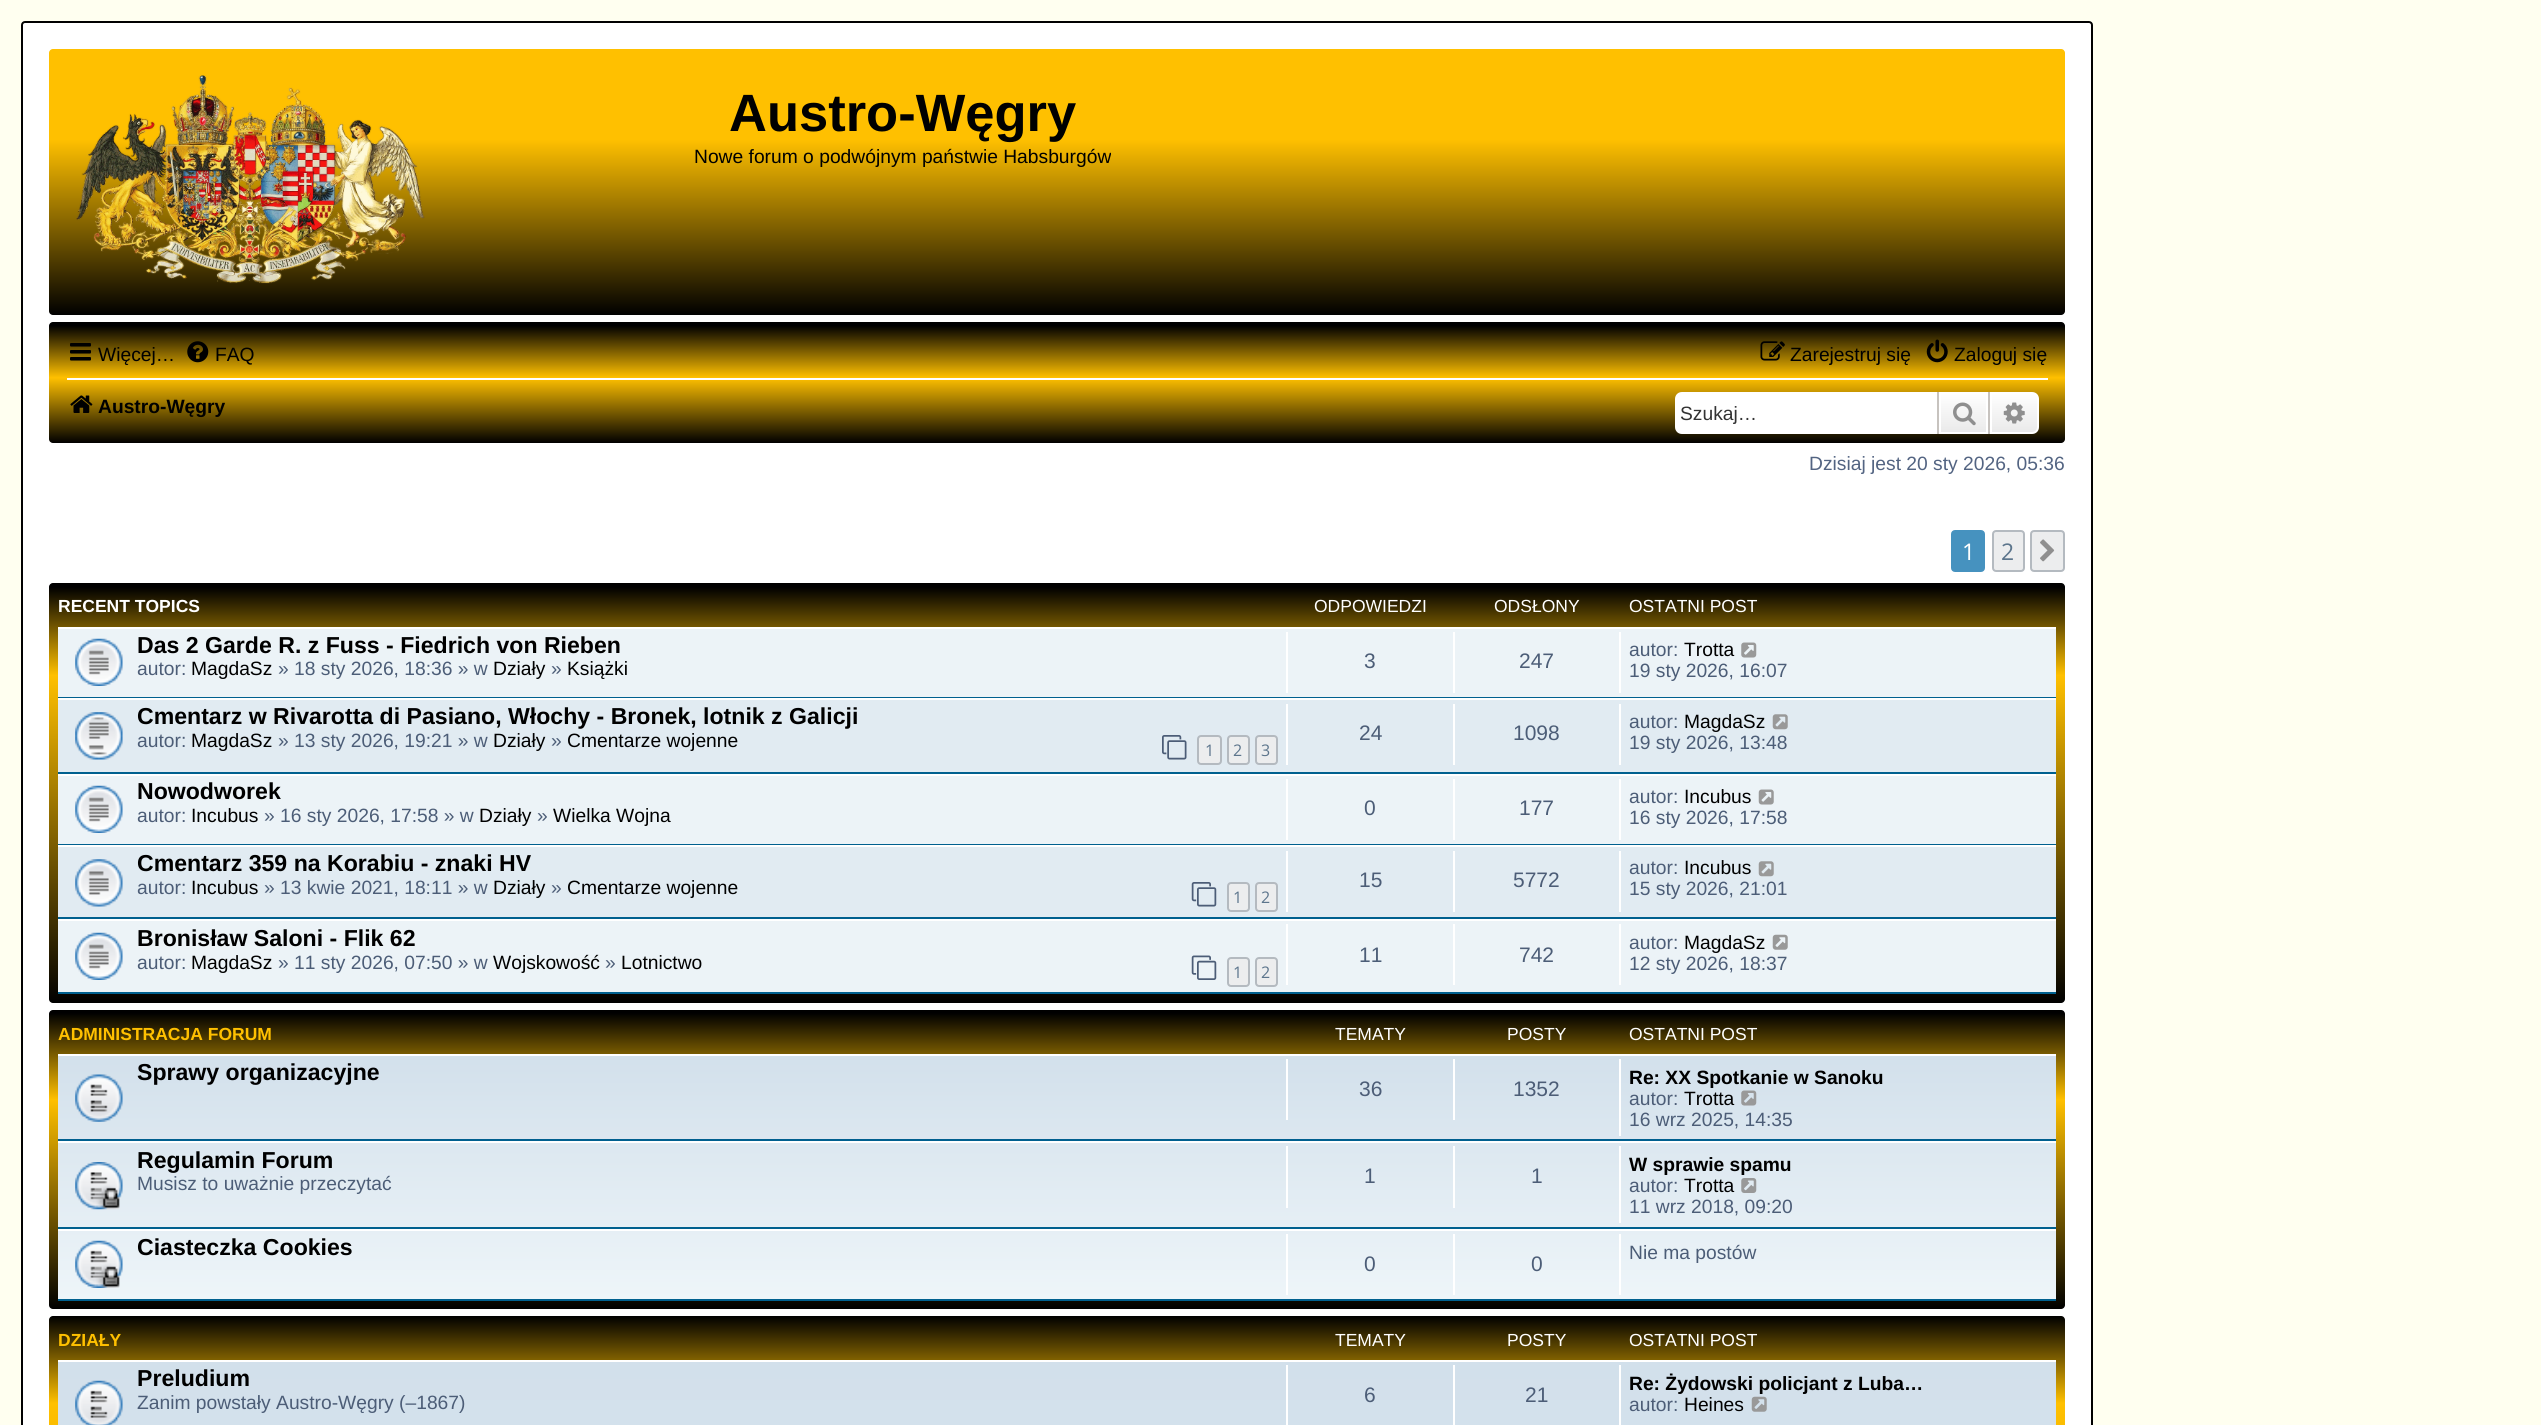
import math
import cairo

surface = cairo.ImageSurface(cairo.FORMAT_RGB24, 2541, 1425)
ctx = cairo.Context(surface)
options = cairo.FontOptions()
options.set_hint_metrics(cairo.HINT_METRICS_OFF)
options.set_hint_style(cairo.HINT_STYLE_NONE)
ctx.set_font_options(options)
ctx.set_miter_limit(4)


def set_color(code):
    ctx.set_source_rgb(*(v / 255 for v in bytes.fromhex(code[-6:])))


def draw_text(x, y, s, family, size, color, bold=False, italic=False):
    ctx.select_font_face(family, cairo.FONT_SLANT_ITALIC if italic else cairo.FONT_SLANT_NORMAL, cairo.FONT_WEIGHT_BOLD if bold else cairo.FONT_WEIGHT_NORMAL)
    ctx.set_font_size(size)
    set_color(color)
    ctx.move_to(x, y)
    ctx.show_text(s)


def fill_rect(x, y, w, h, color):
    set_color(color)
    ctx.rectangle(x, y, w, h)
    ctx.fill()


def rounded_rect(x, y, w, h, r):
    ctx.new_sub_path()
    for i, (u, v) in enumerate([(x + w - r, y + h - r), (x + r, y + h - r), (x + r, y + r), (x + w - r, y + r)]):
        ctx.arc(u, v, r, i * math.pi / 2, (i + 1) * math.pi / 2)
    ctx.close_path()


def draw_image(path, x, y, w, h):
    ctx.save()
    ctx.set_source_surface(cairo.ImageSurface.create_from_png(path), x, y)
    ctx.rectangle(x, y, w, h)
    ctx.fill()
    ctx.restore()


set_color("#fffff0")
ctx.paint()
set_color("#ffffff")
rounded_rect(22, 22, 2070, 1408, 3)
ctx.fill_preserve()
set_color("#000000")
ctx.stroke()
gradient = cairo.LinearGradient(1057, 49, 1057, 315)
gradient.add_color_stop_rgba(0, 1, 0.753, 0, 1)
gradient.add_color_stop_rgba(0.34, 1, 0.753, 0, 1)
gradient.add_color_stop_rgba(1, 0, 0, 0, 1)
ctx.set_source(gradient)
rounded_rect(49, 49, 2016, 266, 4)
ctx.fill()
draw_image("assets/img1.png", 76, 75, 349, 209)
draw_text(729, 131, "Austro-Węgry", "Liberation Sans", 52.5, "#000000", bold=True)
draw_text(694, 163, "Nowe forum o podwójnym państwie Habsburgów", "Liberation Sans", 19.25, "#000000")
gradient = cairo.LinearGradient(1057, 322, 1057, 443)
gradient.add_color_stop_rgba(0, 0, 0, 0, 1)
gradient.add_color_stop_rgba(0.03, 0, 0, 0, 1)
gradient.add_color_stop_rgba(0.46, 1, 0.753, 0, 1)
gradient.add_color_stop_rgba(1, 0, 0, 0, 1)
ctx.set_source(gradient)
rounded_rect(49, 322, 2016, 121, 4)
ctx.fill()
draw_image("assets/img2.png", 70, 343, 21, 18)
draw_text(98, 361, "Więcej…", "Liberation Sans", 19.25, "#000000")
draw_image("assets/img3.png", 187, 341, 22, 22)
draw_text(215, 361, "FAQ", "Liberation Sans", 19.25, "#000000")
draw_image("assets/img4.png", 1760, 341, 25, 20)
draw_text(1790, 361, "Zarejestruj się", "Liberation Sans", 19.25, "#000000")
draw_image("assets/img5.png", 1926, 339, 22, 24)
draw_text(1954, 361, "Zaloguj się", "Liberation Sans", 19.25, "#000000")
fill_rect(67, 378, 1981, 2, "#ffffff")
draw_image("assets/img6.png", 70, 395, 23, 18)
draw_text(98, 413, "Austro-Węgry", "Liberation Sans", 19.25, "#000000", bold=True)
set_color("#ffffff")
ctx.new_path()
ctx.move_to(1682, 392)
ctx.line_to(1937, 392)
ctx.line_to(1937, 434)
ctx.line_to(1682, 434)
ctx.curve_to(1678, 434, 1675, 431, 1675, 427)
ctx.line_to(1675, 399)
ctx.curve_to(1675, 395, 1678, 392, 1682, 392)
ctx.close_path()
ctx.fill()
draw_text(1680, 420, "Szukaj…", "Liberation Sans", 19.25, "#333333")
gradient = cairo.LinearGradient(1964, 392, 1964, 434)
gradient.add_color_stop_rgba(0, 1, 1, 1, 1)
gradient.add_color_stop_rgba(1, 0.914, 0.914, 0.914, 1)
ctx.set_source(gradient)
ctx.rectangle(1941, 394, 45, 38)
ctx.fill()
ctx.rectangle(1940, 393, 47, 40)
set_color("#ffffff")
ctx.stroke()
fill_rect(1988, 392, 2, 42, "#c7c3bf")
fill_rect(1937, 392, 2, 42, "#c7c3bf")
draw_image("assets/img7.png", 1953, 402, 23, 24)
gradient = cairo.LinearGradient(2014, 392, 2014, 434)
gradient.add_color_stop_rgba(0, 1, 1, 1, 1)
gradient.add_color_stop_rgba(1, 0.914, 0.914, 0.914, 1)
ctx.set_source(gradient)
ctx.new_path()
ctx.move_to(1991, 393)
ctx.line_to(2032, 393)
ctx.curve_to(2035.5, 393, 2038, 395.5, 2038, 399)
ctx.line_to(2038, 427)
ctx.curve_to(2038, 430.5, 2035.5, 433, 2032, 433)
ctx.line_to(1991, 433)
ctx.close_path()
ctx.fill_preserve()
set_color("#ffffff")
ctx.stroke()
draw_image("assets/img8.png", 2003, 402, 22, 22)
draw_text(1809, 470, "Dzisiaj jest 20 sty 2026, 05:36", "Liberation Sans", 19.25, "#536482")
set_color("#4692bf")
rounded_rect(1952, 531, 32, 40, 3)
ctx.fill_preserve()
ctx.stroke()
draw_text(1962, 560, "1", "Open Sans", 23, "#ffffff")
set_color("#ecedee")
rounded_rect(1993, 531, 31, 40, 3)
ctx.fill_preserve()
set_color("#b4bac0")
ctx.stroke()
draw_text(2001, 560, "2", "Open Sans", 23, "#5c758c")
set_color("#ecedee")
rounded_rect(2031, 531, 33, 40, 3)
ctx.fill_preserve()
set_color("#b4bac0")
ctx.stroke()
draw_image("assets/img9.png", 2040, 539, 15, 23)
gradient = cairo.LinearGradient(1057, 583, 1057, 1003)
gradient.add_color_stop_rgba(0, 0, 0, 0, 1)
gradient.add_color_stop_rgba(0.01, 0, 0, 0, 1)
gradient.add_color_stop_rgba(0.22, 1, 0.753, 0, 1)
gradient.add_color_stop_rgba(1, 0, 0, 0, 1)
ctx.set_source(gradient)
rounded_rect(49, 583, 2016, 420, 4)
ctx.fill()
draw_text(58, 612, "RECENT TOPICS", "Liberation Sans", 17.5, "#ffffff", bold=True)
draw_text(1314, 612, "ODPOWIEDZI", "Liberation Sans", 17.5, "#ffffff")
draw_text(1494, 612, "ODSŁONY", "Liberation Sans", 17.5, "#ffffff")
draw_text(1629, 612, "OSTATNI POST", "Liberation Sans", 17.5, "#ffffff")
fill_rect(58, 629, 1998, 68, "#ecf3f7")
fill_rect(58, 627, 1998, 2, "#ffffff")
fill_rect(58, 697, 1998, 1, "#00608f")
draw_image("assets/img10.png", 75, 638, 48, 48)
draw_text(137, 653, "Das 2 Garde R. z Fuss - Fiedrich von Rieben", "Liberation Sans", 23.1, "#000000", bold=True)
draw_text(137, 675, "autor:", "Liberation Sans", 19.25, "#4c5d77")
draw_text(191, 675, "MagdaSz", "Liberation Sans", 19.25, "#000000")
draw_text(278, 675, "» 18 sty 2026, 18:36 » w", "Liberation Sans", 19.25, "#4c5d77")
draw_text(493, 675, "Działy", "Liberation Sans", 19.25, "#000000")
draw_text(551, 675, "»", "Liberation Sans", 19.25, "#4c5d77")
draw_text(567, 675, "Książki", "Liberation Sans", 19.25, "#000000")
fill_rect(1286, 632, 2, 61, "#ffffff")
draw_text(1364, 668, "3", "Liberation Sans", 21, "#4c5d77")
fill_rect(1453, 632, 2, 61, "#ffffff")
draw_text(1519, 668, "247", "Liberation Sans", 21, "#4c5d77")
fill_rect(1619, 632, 2, 61, "#ffffff")
draw_text(1629, 656, "autor:", "Liberation Sans", 19.25, "#4c5d77")
draw_text(1684, 656, "Trotta", "Liberation Sans", 19.25, "#000000")
draw_image("assets/img11.png", 1741, 642, 16, 16)
draw_text(1629, 677, "19 sty 2026, 16:07", "Liberation Sans", 19.25, "#4c5d77")
fill_rect(58, 700, 1998, 72, "#e1ebf2")
fill_rect(58, 698, 1998, 2, "#ffffff")
fill_rect(58, 772, 1998, 2, "#00608f")
draw_image("assets/img12.png", 75, 712, 48, 48)
draw_text(137, 724, "Cmentarz w Rivarotta di Pasiano, Włochy - Bronek, lotnik z Galicji", "Liberation Sans", 23.1, "#000000", bold=True)
draw_text(137, 747, "autor:", "Liberation Sans", 19.25, "#4c5d77")
draw_text(191, 747, "MagdaSz", "Liberation Sans", 19.25, "#000000")
draw_text(278, 747, "» 13 sty 2026, 19:21 » w", "Liberation Sans", 19.25, "#4c5d77")
draw_text(493, 747, "Działy", "Liberation Sans", 19.25, "#000000")
draw_text(551, 747, "»", "Liberation Sans", 19.25, "#4c5d77")
draw_text(567, 747, "Cmentarze wojenne", "Liberation Sans", 19.25, "#000000")
draw_image("assets/img13.png", 1162, 735, 25, 25)
set_color("#ecedee")
rounded_rect(1198, 736, 23, 28, 3)
ctx.fill_preserve()
set_color("#b4bac0")
ctx.stroke()
draw_text(1205, 756, "1", "Open Sans", 16, "#5c758c")
set_color("#ecedee")
rounded_rect(1228, 736, 21, 28, 3)
ctx.fill_preserve()
set_color("#b4bac0")
ctx.stroke()
draw_text(1233, 756, "2", "Open Sans", 16, "#5c758c")
set_color("#ecedee")
rounded_rect(1256, 736, 21, 28, 3)
ctx.fill_preserve()
set_color("#b4bac0")
ctx.stroke()
draw_text(1261, 756, "3", "Open Sans", 16, "#5c758c")
fill_rect(1286, 704, 2, 61, "#ffffff")
draw_text(1359, 740, "24", "Liberation Sans", 21, "#4c5d77")
fill_rect(1453, 704, 2, 61, "#ffffff")
draw_text(1513, 740, "1098", "Liberation Sans", 21, "#4c5d77")
fill_rect(1619, 704, 2, 61, "#ffffff")
draw_text(1629, 728, "autor:", "Liberation Sans", 19.25, "#4c5d77")
draw_text(1684, 728, "MagdaSz", "Liberation Sans", 19.25, "#000000")
draw_image("assets/img14.png", 1772, 714, 16, 16)
draw_text(1629, 749, "19 sty 2026, 13:48", "Liberation Sans", 19.25, "#4c5d77")
fill_rect(58, 776, 1998, 68, "#ecf3f7")
fill_rect(58, 774, 1998, 2, "#ffffff")
fill_rect(58, 844, 1998, 1, "#00608f")
draw_image("assets/img10.png", 75, 785, 48, 48)
draw_text(137, 799, "Nowodworek", "Liberation Sans", 23.1, "#000000", bold=True)
draw_text(137, 822, "autor:", "Liberation Sans", 19.25, "#4c5d77")
draw_text(191, 822, "Incubus", "Liberation Sans", 19.25, "#000000")
draw_text(264, 822, "» 16 sty 2026, 17:58 » w", "Liberation Sans", 19.25, "#4c5d77")
draw_text(479, 822, "Działy", "Liberation Sans", 19.25, "#000000")
draw_text(537, 822, "»", "Liberation Sans", 19.25, "#4c5d77")
draw_text(553, 822, "Wielka Wojna", "Liberation Sans", 19.25, "#000000")
fill_rect(1286, 779, 2, 61, "#ffffff")
draw_text(1364, 815, "0", "Liberation Sans", 21, "#4c5d77")
fill_rect(1453, 779, 2, 61, "#ffffff")
draw_text(1519, 815, "177", "Liberation Sans", 21, "#4c5d77")
fill_rect(1619, 779, 2, 61, "#ffffff")
draw_text(1629, 803, "autor:", "Liberation Sans", 19.25, "#4c5d77")
draw_text(1684, 803, "Incubus", "Liberation Sans", 19.25, "#000000")
draw_image("assets/img15.png", 1758, 789, 16, 16)
draw_text(1629, 824, "16 sty 2026, 17:58", "Liberation Sans", 19.25, "#4c5d77")
fill_rect(58, 847, 1998, 70, "#e1ebf2")
fill_rect(58, 845, 1998, 2, "#ffffff")
fill_rect(58, 917, 1998, 2, "#00608f")
draw_image("assets/img16.png", 75, 859, 48, 48)
draw_text(137, 871, "Cmentarz 359 na Korabiu - znaki HV", "Liberation Sans", 23.1, "#000000", bold=True)
draw_text(137, 894, "autor:", "Liberation Sans", 19.25, "#4c5d77")
draw_text(191, 894, "Incubus", "Liberation Sans", 19.25, "#000000")
draw_text(264, 894, "» 13 kwie 2021, 18:11 » w", "Liberation Sans", 19.25, "#4c5d77")
draw_text(493, 894, "Działy", "Liberation Sans", 19.25, "#000000")
draw_text(551, 894, "»", "Liberation Sans", 19.25, "#4c5d77")
draw_text(567, 894, "Cmentarze wojenne", "Liberation Sans", 19.25, "#000000")
draw_image("assets/img17.png", 1191, 882, 26, 25)
set_color("#ecedee")
rounded_rect(1228, 883, 21, 28, 3)
ctx.fill_preserve()
set_color("#b4bac0")
ctx.stroke()
draw_text(1233, 903, "1", "Open Sans", 16, "#5c758c")
set_color("#ecedee")
rounded_rect(1256, 883, 21, 28, 3)
ctx.fill_preserve()
set_color("#b4bac0")
ctx.stroke()
draw_text(1261, 903, "2", "Open Sans", 16, "#5c758c")
fill_rect(1286, 851, 2, 61, "#ffffff")
draw_text(1359, 887, "15", "Liberation Sans", 21, "#4c5d77")
fill_rect(1453, 851, 2, 61, "#ffffff")
draw_text(1513, 887, "5772", "Liberation Sans", 21, "#4c5d77")
fill_rect(1619, 851, 2, 61, "#ffffff")
draw_text(1629, 874, "autor:", "Liberation Sans", 19.25, "#4c5d77")
draw_text(1684, 874, "Incubus", "Liberation Sans", 19.25, "#000000")
draw_image("assets/img14.png", 1758, 861, 16, 16)
draw_text(1629, 895, "15 sty 2026, 21:01", "Liberation Sans", 19.25, "#4c5d77")
fill_rect(58, 921, 1998, 71, "#ecf3f7")
fill_rect(58, 919, 1998, 2, "#ffffff")
fill_rect(58, 992, 1998, 2, "#00608f")
draw_image("assets/img10.png", 75, 932, 48, 48)
draw_text(137, 946, "Bronisław Saloni - Flik 62", "Liberation Sans", 23.1, "#000000", bold=True)
draw_text(137, 969, "autor:", "Liberation Sans", 19.25, "#4c5d77")
draw_text(191, 969, "MagdaSz", "Liberation Sans", 19.25, "#000000")
draw_text(278, 969, "» 11 sty 2026, 07:50 » w", "Liberation Sans", 19.25, "#4c5d77")
draw_text(493, 969, "Wojskowość", "Liberation Sans", 19.25, "#000000")
draw_text(605, 969, "»", "Liberation Sans", 19.25, "#4c5d77")
draw_text(621, 969, "Lotnictwo", "Liberation Sans", 19.25, "#000000")
draw_image("assets/img18.png", 1191, 955, 26, 25)
set_color("#ecedee")
rounded_rect(1228, 958, 21, 28, 3)
ctx.fill_preserve()
set_color("#b4bac0")
ctx.stroke()
draw_text(1233, 978, "1", "Open Sans", 16, "#5c758c")
set_color("#ecedee")
rounded_rect(1256, 958, 21, 28, 3)
ctx.fill_preserve()
set_color("#b4bac0")
ctx.stroke()
draw_text(1261, 978, "2", "Open Sans", 16, "#5c758c")
fill_rect(1286, 924, 2, 61, "#ffffff")
draw_text(1359, 962, "11", "Liberation Sans", 21, "#4c5d77")
fill_rect(1453, 924, 2, 61, "#ffffff")
draw_text(1519, 962, "742", "Liberation Sans", 21, "#4c5d77")
fill_rect(1619, 924, 2, 61, "#ffffff")
draw_text(1629, 949, "autor:", "Liberation Sans", 19.25, "#4c5d77")
draw_text(1684, 949, "MagdaSz", "Liberation Sans", 19.25, "#000000")
draw_image("assets/img19.png", 1772, 934, 16, 16)
draw_text(1629, 970, "12 sty 2026, 18:37", "Liberation Sans", 19.25, "#4c5d77")
gradient = cairo.LinearGradient(1057, 1010, 1057, 1309)
gradient.add_color_stop_rgba(0, 0, 0, 0, 1)
gradient.add_color_stop_rgba(0.01, 0, 0, 0, 1)
gradient.add_color_stop_rgba(0.3, 1, 0.753, 0, 1)
gradient.add_color_stop_rgba(1, 0, 0, 0, 1)
ctx.set_source(gradient)
rounded_rect(49, 1010, 2016, 299, 4)
ctx.fill()
draw_text(58, 1040, "ADMINISTRACJA FORUM", "Liberation Sans", 17.5, "#ffc000", bold=True)
draw_text(1335, 1040, "TEMATY", "Liberation Sans", 17.5, "#ffffff")
draw_text(1507, 1040, "POSTY", "Liberation Sans", 17.5, "#ffffff")
draw_text(1629, 1040, "OSTATNI POST", "Liberation Sans", 17.5, "#ffffff")
gradient = cairo.LinearGradient(1057, 1053, 1057, 1300)
gradient.add_color_stop_rgba(0, 0.824, 0.878, 0.922, 1)
gradient.add_color_stop_rgba(1, 0.933, 0.961, 0.976, 1)
ctx.set_source(gradient)
ctx.rectangle(58, 1056, 1998, 243)
ctx.fill()
fill_rect(58, 1054, 1998, 2, "#ffffff")
fill_rect(58, 1139, 1998, 2, "#00608f")
draw_image("assets/img20.png", 75, 1074, 48, 48)
draw_text(137, 1080, "Sprawy organizacyjne", "Liberation Sans", 23.1, "#000000", bold=True)
fill_rect(1286, 1059, 2, 61, "#ffffff")
draw_text(1359, 1096, "36", "Liberation Sans", 21, "#4c5d77")
fill_rect(1453, 1059, 2, 61, "#ffffff")
draw_text(1513, 1096, "1352", "Liberation Sans", 21, "#4c5d77")
fill_rect(1619, 1059, 2, 77, "#ffffff")
draw_text(1629, 1084, "Re: XX Spotkanie w Sanoku", "Liberation Sans", 19.25, "#000000", bold=True)
draw_text(1629, 1105, "autor:", "Liberation Sans", 19.25, "#4c5d77")
draw_text(1684, 1105, "Trotta", "Liberation Sans", 19.25, "#000000")
draw_image("assets/img21.png", 1741, 1090, 16, 16)
draw_text(1629, 1126, "16 wrz 2025, 14:35", "Liberation Sans", 19.25, "#4c5d77")
fill_rect(58, 1141, 1998, 2, "#ffffff")
fill_rect(58, 1227, 1998, 2, "#00608f")
draw_image("assets/img22.png", 75, 1162, 48, 48)
draw_text(137, 1168, "Regulamin Forum", "Liberation Sans", 23.1, "#000000", bold=True)
draw_text(137, 1190, "Musisz to uważnie przeczytać", "Liberation Sans", 19.25, "#4c5d77")
fill_rect(1286, 1146, 2, 62, "#ffffff")
draw_text(1364, 1183, "1", "Liberation Sans", 21, "#4c5d77")
fill_rect(1453, 1146, 2, 62, "#ffffff")
draw_text(1531, 1183, "1", "Liberation Sans", 21, "#4c5d77")
fill_rect(1619, 1146, 2, 77, "#ffffff")
draw_text(1629, 1171, "W sprawie spamu", "Liberation Sans", 19.25, "#000000", bold=True)
draw_text(1629, 1192, "autor:", "Liberation Sans", 19.25, "#4c5d77")
draw_text(1684, 1192, "Trotta", "Liberation Sans", 19.25, "#000000")
draw_image("assets/img23.png", 1741, 1178, 16, 15)
draw_text(1629, 1213, "11 wrz 2018, 09:20", "Liberation Sans", 19.25, "#4c5d77")
fill_rect(58, 1229, 1998, 2, "#ffffff")
fill_rect(58, 1299, 1998, 2, "#00608f")
draw_image("assets/img24.png", 75, 1240, 48, 48)
draw_text(137, 1255, "Ciasteczka Cookies", "Liberation Sans", 23.1, "#000000", bold=True)
fill_rect(1286, 1234, 2, 61, "#ffffff")
draw_text(1364, 1271, "0", "Liberation Sans", 21, "#4c5d77")
fill_rect(1453, 1234, 2, 61, "#ffffff")
draw_text(1531, 1271, "0", "Liberation Sans", 21, "#4c5d77")
fill_rect(1619, 1234, 2, 61, "#ffffff")
draw_text(1629, 1259, "Nie ma postów", "Liberation Sans", 19.25, "#4c5d77")
gradient = cairo.LinearGradient(1057, 1316, 1057, 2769)
gradient.add_color_stop_rgba(0, 0, 0, 0, 1)
gradient.add_color_stop_rgba(0, 0, 0, 0, 1)
gradient.add_color_stop_rgba(0.06, 1, 0.753, 0, 1)
gradient.add_color_stop_rgba(1, 0, 0, 0, 1)
ctx.set_source(gradient)
rounded_rect(49, 1316, 2016, 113, 4)
ctx.fill()
draw_text(58, 1346, "DZIAŁY", "Liberation Sans", 17.5, "#ffc000", bold=True)
draw_text(1335, 1346, "TEMATY", "Liberation Sans", 17.5, "#ffffff")
draw_text(1507, 1346, "POSTY", "Liberation Sans", 17.5, "#ffffff")
draw_text(1629, 1346, "OSTATNI POST", "Liberation Sans", 17.5, "#ffffff")
gradient = cairo.LinearGradient(1057, 1360, 1057, 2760)
gradient.add_color_stop_rgba(0, 0.824, 0.878, 0.922, 1)
gradient.add_color_stop_rgba(1, 0.933, 0.961, 0.976, 1)
ctx.set_source(gradient)
ctx.rectangle(58, 1362, 1998, 63)
ctx.fill()
fill_rect(58, 1360, 1998, 2, "#ffffff")
draw_image("assets/img25.png", 75, 1380, 48, 45)
draw_text(137, 1386, "Preludium", "Liberation Sans", 23.1, "#000000", bold=True)
draw_text(137, 1409, "Zanim powstały Austro-Węgry (–1867)", "Liberation Sans", 19.25, "#4c5d77")
fill_rect(1286, 1365, 2, 60, "#ffffff")
draw_text(1364, 1402, "6", "Liberation Sans", 21, "#4c5d77")
fill_rect(1453, 1365, 2, 60, "#ffffff")
draw_text(1525, 1402, "21", "Liberation Sans", 21, "#4c5d77")
fill_rect(1619, 1365, 2, 60, "#ffffff")
draw_text(1629, 1390, "Re: Żydowski policjant z Luba…", "Liberation Sans", 19.25, "#000000", bold=True)
draw_text(1629, 1411, "autor:", "Liberation Sans", 19.25, "#4c5d77")
draw_text(1684, 1411, "Heines", "Liberation Sans", 19.25, "#000000")
draw_image("assets/img26.png", 1751, 1396, 16, 16)
surface.write_to_png("output.png")
